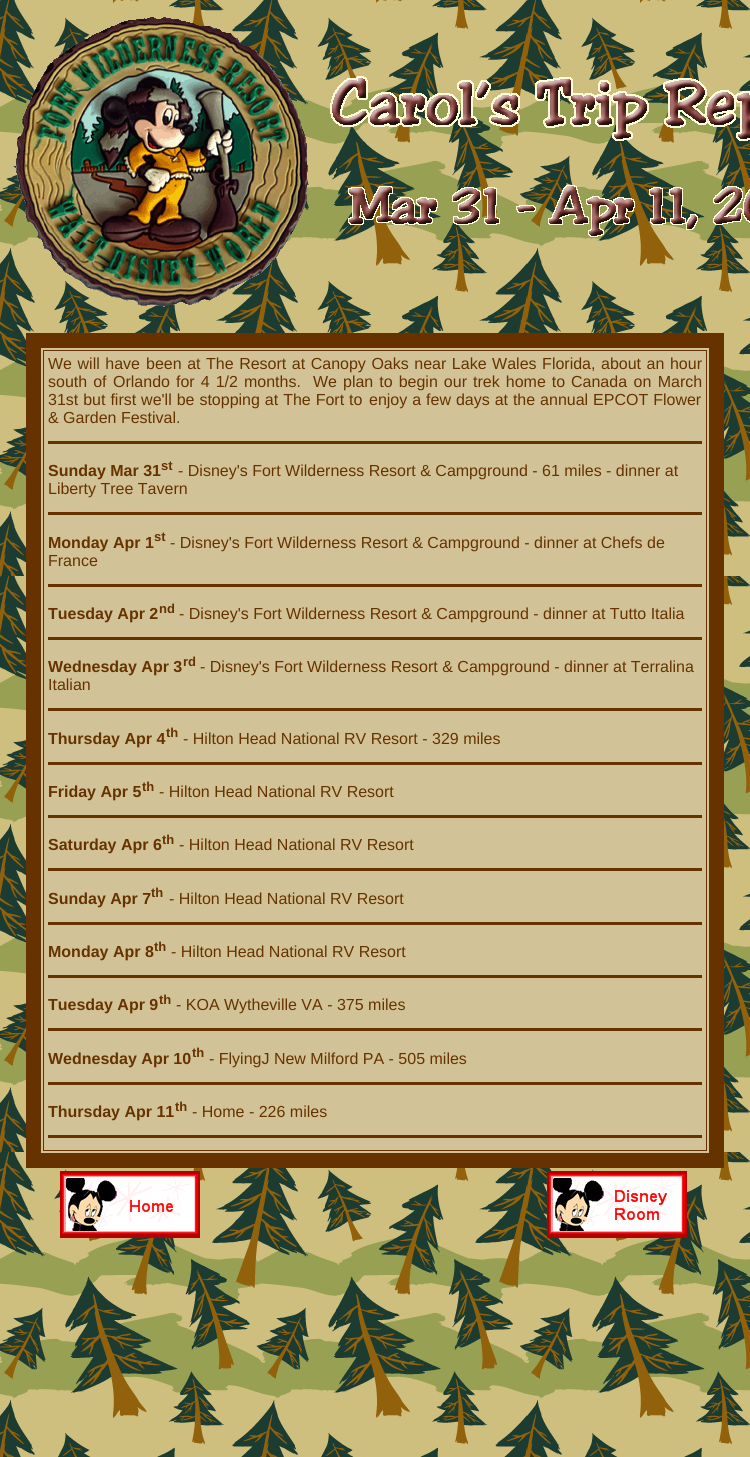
import math
import cairo

surface = cairo.ImageSurface(cairo.FORMAT_RGB24, 750, 1457)
ctx = cairo.Context(surface)
options = cairo.FontOptions()
options.set_hint_metrics(cairo.HINT_METRICS_OFF)
options.set_hint_style(cairo.HINT_STYLE_NONE)
ctx.set_font_options(options)
ctx.set_miter_limit(4)


def set_color(code):
    ctx.set_source_rgb(*(v / 255 for v in bytes.fromhex(code[-6:])))


def draw_text(x, y, s, family, size, color, bold=False, italic=False):
    ctx.select_font_face(family, cairo.FONT_SLANT_ITALIC if italic else cairo.FONT_SLANT_NORMAL, cairo.FONT_WEIGHT_BOLD if bold else cairo.FONT_WEIGHT_NORMAL)
    ctx.set_font_size(size)
    set_color(color)
    ctx.move_to(x, y)
    ctx.show_text(s)


def draw_spaced(x, y, s, letter, word):
    ctx.move_to(x, y)
    for ch in s:
        ctx.show_text(ch)
        ctx.rel_move_to(letter + word * (ch == ' '), 0)


def fill_rect(x, y, w, h, color):
    set_color(color)
    ctx.rectangle(x, y, w, h)
    ctx.fill()


def draw_image(path, x, y, w, h):
    ctx.save()
    ctx.set_source_surface(cairo.ImageSurface.create_from_png(path), x, y)
    ctx.rectangle(x, y, w, h)
    ctx.fill()
    ctx.restore()


set_color("#ffffff")
ctx.paint()
draw_image("assets/img1.png", 0, 0, 750, 1457)
draw_image("assets/img2.png", 16, 17, 292, 290)
draw_image("assets/img3.png", 330, 76, 420, 161)
set_color("#d2c297")
ctx.rectangle(33.5, 340.5, 683, 820)
ctx.fill_preserve()
set_color("#663300")
ctx.set_line_width(15)
ctx.stroke()
ctx.rectangle(43.5, 350.5, 663, 800)
ctx.set_line_width(1)
ctx.stroke()
ctx.select_font_face("Liberation Sans")
ctx.set_font_size(16)
draw_spaced(48, 369, "We will have", 0, 1.1)
draw_spaced(146, 369, "been at The Resort at Canopy Oaks near Lake Wales Florida, about an hour", 0, 1.1)
draw_spaced(48, 387, "south of", 0, 1.6)
draw_spaced(113, 387, "Orlando for 4 1/2 months.  We plan to begin our trek home to", 0, 1.6)
draw_spaced(571, 387, "Canada on March", 0, 2)
draw_spaced(48, 405, "31st but first we'll be stopping at The Fort to", 0, 0.5)
draw_spaced(369, 405, "enjoy a few days at the annual EPCOT Flower", 0, 0.5)
draw_text(48, 423, "& Garden Festival.", "Liberation Sans", 16, "#663300")
fill_rect(48, 441, 654, 3, "#663300")
draw_text(48, 476, "Sunday Mar 31", "Liberation Sans", 16, "#663300", bold=True)
draw_text(161, 470, "st", "Liberation Sans", 13, "#663300", bold=True)
draw_text(178, 476, "- Disney's Fort Wilderness Resort & Campground - 61 miles - dinner at", "Liberation Sans", 16, "#663300")
draw_text(48, 494, "Liberty Tree Tavern", "Liberation Sans", 16, "#663300")
fill_rect(48, 512, 654, 3, "#663300")
draw_text(48, 548, "Monday Apr 1", "Liberation Sans", 16, "#663300", bold=True)
draw_text(154, 541, "st", "Liberation Sans", 13, "#663300", bold=True)
draw_text(170, 548, "- Disney's Fort Wilderness Resort & Campground - dinner at Chefs de", "Liberation Sans", 16, "#663300")
draw_text(48, 566, "France", "Liberation Sans", 16, "#663300")
fill_rect(48, 584, 654, 3, "#663300")
draw_text(48, 619, "Tuesday Apr 2", "Liberation Sans", 16, "#663300", bold=True)
draw_text(159, 613, "nd", "Liberation Sans", 13, "#663300", bold=True)
draw_text(179, 619, "- Disney's Fort Wilderness Resort & Campground - dinner at Tutto Italia", "Liberation Sans", 16, "#663300")
fill_rect(48, 637, 654, 3, "#663300")
draw_text(48, 672, "Wednesday Apr 3", "Liberation Sans", 16, "#663300", bold=True)
draw_text(183, 666, "rd", "Liberation Sans", 13, "#663300", bold=True)
draw_text(200, 672, "- Disney's Fort Wilderness Resort & Campground - dinner at Terralina", "Liberation Sans", 16, "#663300")
draw_text(48, 690, "Italian", "Liberation Sans", 16, "#663300")
fill_rect(48, 708, 654, 3, "#663300")
draw_text(48, 744, "Thursday Apr 4", "Liberation Sans", 16, "#663300", bold=True)
draw_text(166, 737, "th", "Liberation Sans", 13, "#663300", bold=True)
draw_text(183, 744, "- Hilton Head National RV Resort - 329 miles", "Liberation Sans", 16, "#663300")
fill_rect(48, 762, 654, 3, "#663300")
draw_text(48, 797, "Friday Apr 5", "Liberation Sans", 16, "#663300", bold=True)
draw_text(142, 791, "th", "Liberation Sans", 13, "#663300", bold=True)
draw_text(159, 797, "- Hilton Head National RV Resort", "Liberation Sans", 16, "#663300")
fill_rect(48, 815, 654, 3, "#663300")
draw_text(48, 850, "Saturday Apr 6", "Liberation Sans", 16, "#663300", bold=True)
draw_text(162, 844, "th", "Liberation Sans", 13, "#663300", bold=True)
draw_text(179, 850, "- Hilton Head National RV Resort", "Liberation Sans", 16, "#663300")
fill_rect(48, 868, 654, 3, "#663300")
draw_text(48, 904, "Sunday Apr 7", "Liberation Sans", 16, "#663300", bold=True)
draw_text(151, 897, "th", "Liberation Sans", 13, "#663300", bold=True)
draw_text(169, 904, "- Hilton Head National RV Resort", "Liberation Sans", 16, "#663300")
fill_rect(48, 922, 654, 3, "#663300")
draw_text(48, 957, "Monday Apr 8", "Liberation Sans", 16, "#663300", bold=True)
draw_text(154, 951, "th", "Liberation Sans", 13, "#663300", bold=True)
draw_text(171, 957, "- Hilton Head National RV Resort", "Liberation Sans", 16, "#663300")
fill_rect(48, 975, 654, 3, "#663300")
draw_text(48, 1010, "Tuesday Apr 9", "Liberation Sans", 16, "#663300", bold=True)
draw_text(159, 1004, "th", "Liberation Sans", 13, "#663300", bold=True)
draw_text(176, 1010, "- KOA Wytheville VA - 375 miles", "Liberation Sans", 16, "#663300")
fill_rect(48, 1028, 654, 3, "#663300")
draw_text(48, 1064, "Wednesday Apr 10", "Liberation Sans", 16, "#663300", bold=True)
draw_text(192, 1057, "th", "Liberation Sans", 13, "#663300", bold=True)
draw_text(209, 1064, "- FlyingJ New Milford PA - 505 miles", "Liberation Sans", 16, "#663300")
fill_rect(48, 1082, 654, 3, "#663300")
draw_text(48, 1117, "Thursday Apr 11", "Liberation Sans", 16, "#663300", bold=True)
draw_text(175, 1111, "th", "Liberation Sans", 13, "#663300", bold=True)
draw_text(192, 1117, "- Home - 226 miles", "Liberation Sans", 16, "#663300")
fill_rect(48, 1135, 654, 3, "#663300")
draw_image("assets/img4.png", 60, 1171, 140, 67)
draw_image("assets/img5.png", 547, 1171, 140, 67)
surface.write_to_png("output.png")
